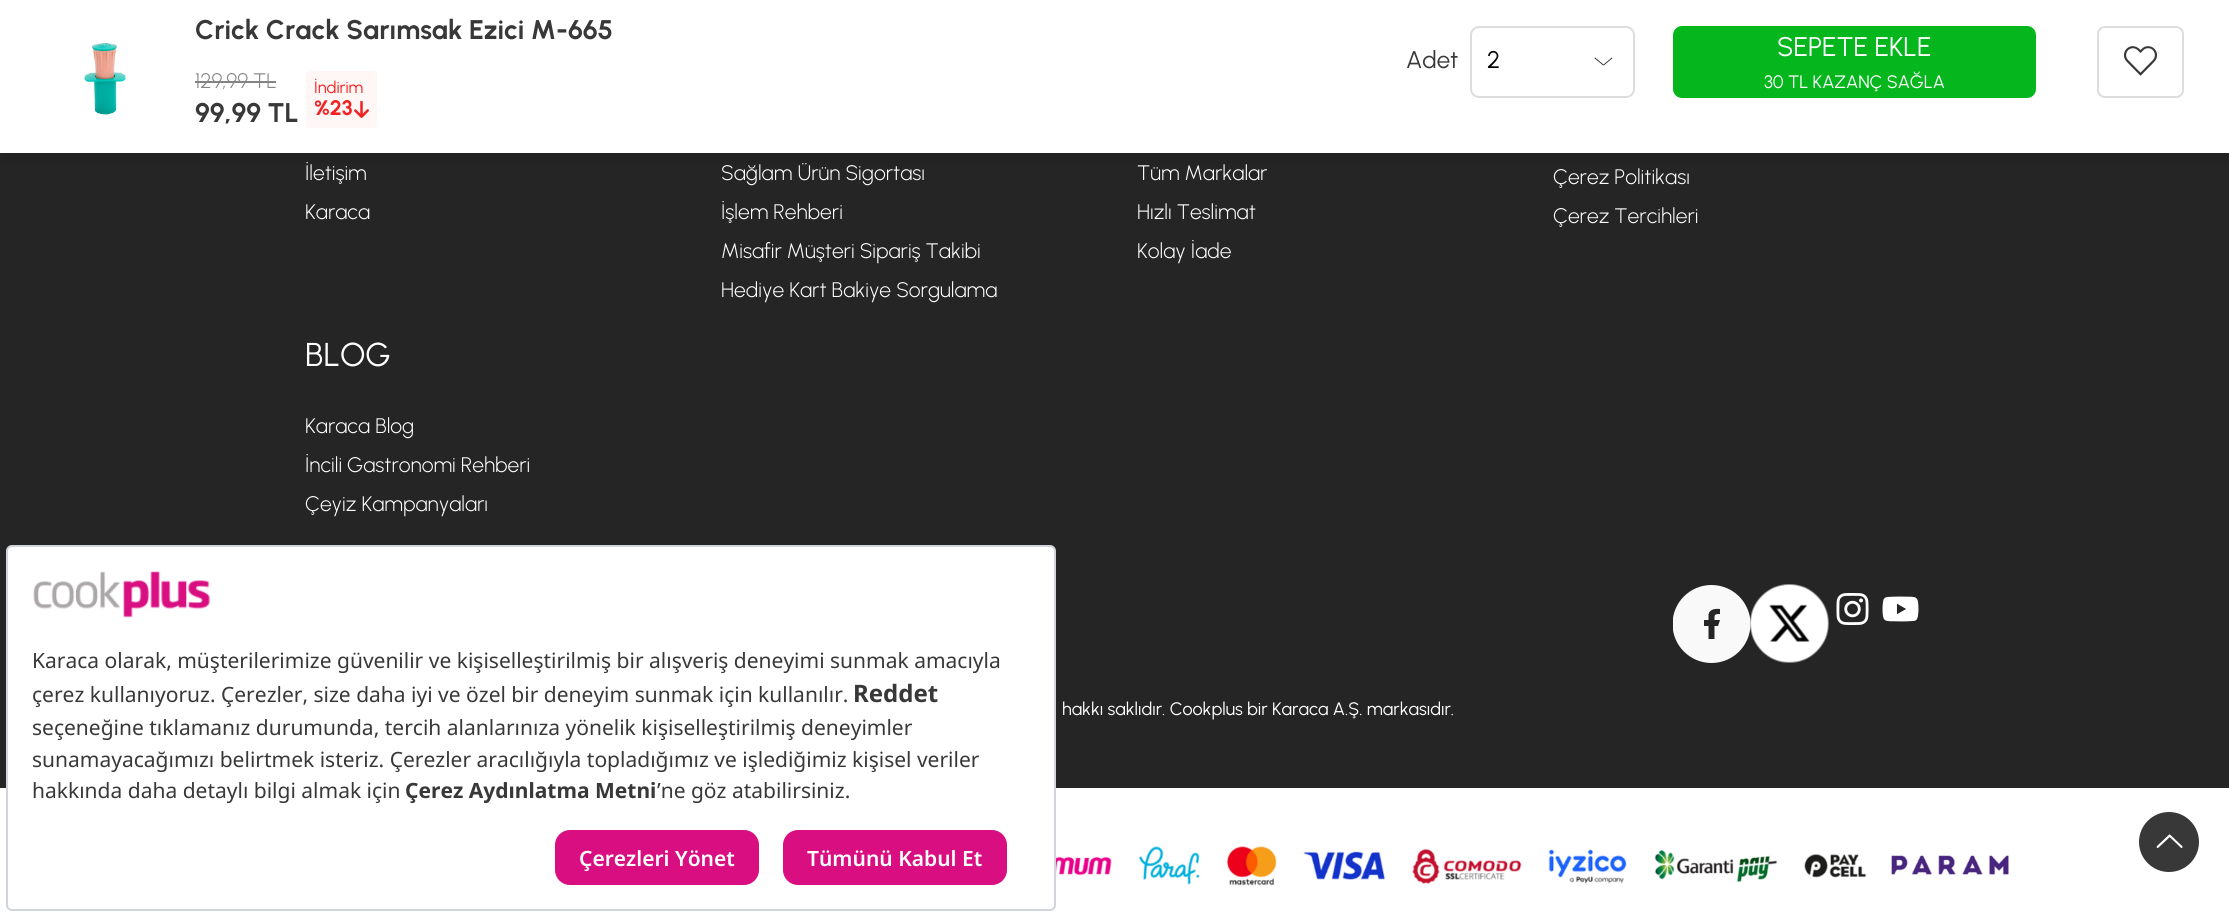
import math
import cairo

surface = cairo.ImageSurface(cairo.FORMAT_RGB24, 2229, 916)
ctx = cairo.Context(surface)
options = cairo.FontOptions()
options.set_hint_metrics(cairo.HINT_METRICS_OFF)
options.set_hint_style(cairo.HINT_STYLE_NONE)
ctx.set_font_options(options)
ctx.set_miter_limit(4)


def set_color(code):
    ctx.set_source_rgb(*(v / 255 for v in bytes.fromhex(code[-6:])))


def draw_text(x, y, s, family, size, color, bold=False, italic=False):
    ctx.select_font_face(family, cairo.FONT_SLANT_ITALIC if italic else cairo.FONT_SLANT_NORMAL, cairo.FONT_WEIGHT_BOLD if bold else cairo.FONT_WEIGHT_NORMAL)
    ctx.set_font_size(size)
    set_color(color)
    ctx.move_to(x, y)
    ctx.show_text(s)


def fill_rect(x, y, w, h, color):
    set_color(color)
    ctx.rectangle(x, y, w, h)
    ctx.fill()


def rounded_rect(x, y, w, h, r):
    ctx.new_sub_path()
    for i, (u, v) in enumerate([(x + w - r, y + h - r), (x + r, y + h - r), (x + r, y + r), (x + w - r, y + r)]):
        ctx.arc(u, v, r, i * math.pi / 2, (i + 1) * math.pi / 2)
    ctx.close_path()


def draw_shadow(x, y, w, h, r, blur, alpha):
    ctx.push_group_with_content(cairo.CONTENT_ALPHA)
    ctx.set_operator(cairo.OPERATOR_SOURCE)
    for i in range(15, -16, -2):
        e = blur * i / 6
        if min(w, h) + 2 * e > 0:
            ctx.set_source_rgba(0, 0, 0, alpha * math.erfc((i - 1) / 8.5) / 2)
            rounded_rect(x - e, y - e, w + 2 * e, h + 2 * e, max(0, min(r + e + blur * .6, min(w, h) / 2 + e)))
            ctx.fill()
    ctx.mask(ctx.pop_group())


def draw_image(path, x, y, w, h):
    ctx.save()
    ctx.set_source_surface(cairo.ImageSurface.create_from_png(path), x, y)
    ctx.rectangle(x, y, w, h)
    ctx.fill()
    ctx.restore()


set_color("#252525")
ctx.paint()
set_color("#000000")
draw_shadow(0, 9, 2229, 153, 0, 4, 0.1)
fill_rect(0, 0, 2229, 153, "#ffffff")
draw_image("assets/img1.png", 84, 43, 42, 72)
draw_text(195, 39, "Crick Crack Sarımsak Ezici M-665", "Urbanist", 27, "#383838", bold=True)
draw_text(195, 88, "129,99 TL", "Urbanist Light", 21, "#838383")
fill_rect(195, 81, 81, 2, "#838383")
draw_text(195, 122, "99,99 TL", "Urbanist", 27, "#383838", bold=True)
set_color("#fef7f6")
rounded_rect(306, 71, 71, 57, 3)
ctx.fill()
draw_text(314, 93, "İndirim", "Urbanist", 16.5, "#f22222")
draw_text(314, 115, "%23", "Urbanist", 21, "#f22222", bold=True)
draw_image("assets/img2.png", 354, 101, 15, 17)
draw_text(1406, 68, "Adet", "Urbanist", 24, "#383838")
draw_image("assets/img3.png", 1594, 57, 19, 9)
rounded_rect(1471, 27, 163, 70, 8)
set_color("#dddddd")
ctx.stroke()
draw_text(1487, 68, "2", "Urbanist", 24, "#000000")
set_color("#05b71d")
rounded_rect(1673, 26, 363, 72, 9)
ctx.fill()
draw_text(1777, 56, "SEPETE EKLE", "Urbanist", 27, "#ffffff")
draw_text(1764, 88, "30 TL KAZANÇ SAĞLA", "Urbanist", 18, "#ffffff")
rounded_rect(2098, 27, 85, 70, 7)
set_color("#dddddd")
ctx.stroke()
draw_image("assets/img4.png", 2123, 46, 35, 30)
draw_text(305, 180, "İletişim", "Urbanist Light", 21, "#ffffff")
draw_text(305, 219, "Karaca", "Urbanist Light", 21, "#ffffff")
draw_text(721, 180, "Sağlam Ürün Sigortası", "Urbanist Light", 21, "#ffffff")
draw_text(721, 219, "İşlem Rehberi", "Urbanist Light", 21, "#ffffff")
draw_text(721, 258, "Misafir Müşteri Sipariş Takibi", "Urbanist Light", 21, "#ffffff")
draw_text(721, 297, "Hediye Kart Bakiye Sorgulama", "Urbanist Light", 21, "#ffffff")
draw_text(1137, 180, "Tüm Markalar", "Urbanist Light", 21, "#ffffff")
draw_text(1137, 219, "Hızlı Teslimat", "Urbanist Light", 21, "#ffffff")
draw_text(1137, 258, "Kolay İade", "Urbanist Light", 21, "#ffffff")
draw_text(1553, 184, "Çerez Politikası", "Urbanist Light", 21, "#ffffff")
draw_text(1553, 223, "Çerez Tercihleri", "Urbanist Light", 21, "#ffffff")
draw_text(305, 366, "BLOG", "Urbanist", 33, "#ffffff")
draw_text(305, 433, "Karaca Blog", "Urbanist Light", 21, "#ffffff")
draw_text(305, 472, "İncili Gastronomi Rehberi", "Urbanist Light", 21, "#ffffff")
draw_text(305, 511, "Çeyiz Kampanyaları", "Urbanist Light", 21, "#ffffff")
ctx.save()
ctx.rectangle(1673, 585, 78, 78)
ctx.clip()
set_color("#f9f9f9")
ctx.arc(1711.5, 624, 39, 0, 2 * math.pi)
ctx.fill()
ctx.restore()
set_color("#252525")
ctx.new_path()
ctx.move_to(1714.5, 626)
ctx.line_to(1718, 626)
ctx.line_to(1720, 620)
ctx.line_to(1714.5, 620)
ctx.curve_to(1714.5, 615, 1714, 614, 1720, 614)
ctx.line_to(1720, 609)
ctx.curve_to(1715.5, 608.5, 1709.5, 609, 1708.5, 614.5)
ctx.line_to(1708.5, 620)
ctx.line_to(1704, 620)
ctx.line_to(1704, 626)
ctx.line_to(1708.5, 626)
ctx.line_to(1708.5, 639)
ctx.line_to(1714.5, 639)
ctx.close_path()
ctx.fill()
draw_image("assets/img5.png", 1750, 584, 79, 79)
draw_image("assets/img6.png", 1836, 593, 33, 32)
draw_image("assets/img7.png", 1882, 596, 37, 26)
draw_text(1062, 715, "hakkı saklıdır. Cookplus bir Karaca A.Ş. markasıdır.", "Urbanist", 18, "#ffffff")
fill_rect(0, 788, 2229, 128, "#ffffff")
draw_image("assets/img8.png", 1056, 844, 953, 42)
rounded_rect(7, 546, 1048, 364, 5)
ctx.fill_preserve()
set_color("#d1d5db")
ctx.stroke()
draw_image("assets/img9.png", 33, 571, 178, 47)
draw_text(32, 668, "Karaca olarak, müşterilerimize güvenilir ve kişiselleştirilmiş bir alışveriş deneyimi sunmak amacıyla", "Noto Sans", 21, "#383838")
draw_text(32, 702, "çerez kullanıyoruz. Çerezler, size daha iyi ve özel bir deneyim sunmak için kullanılır.", "Noto Sans", 21, "#383838")
draw_text(853, 702, "Reddet", "Noto Sans", 24, "#383838", bold=True)
draw_text(32, 735, "seçeneğine tıklamanız durumunda, tercih alanlarınıza yönelik kişiselleştirilmiş deneyimler", "Noto Sans", 21, "#383838")
draw_text(32, 767, "sunamayacağımızı belirtmek isteriz. Çerezler aracılığıyla topladığımız ve işlediğimiz kişisel veriler", "Noto Sans", 21, "#383838")
draw_text(32, 798, "hakkında daha detaylı bilgi almak için", "Noto Sans", 21, "#383838")
draw_text(405, 798, "Çerez Aydınlatma Metni", "Noto Sans", 21, "#383838", bold=True)
draw_text(657, 798, "’ne göz atabilirsiniz.", "Noto Sans", 21, "#383838")
set_color("#d80e81")
rounded_rect(555, 830, 204, 55, 15)
ctx.fill()
draw_text(579, 866, "Çerezleri Yönet", "Noto Sans SemiBold", 21, "#ffffff")
set_color("#d80e81")
rounded_rect(783, 830, 224, 55, 15)
ctx.fill()
draw_text(807, 866, "Tümünü Kabul Et", "Noto Sans SemiBold", 21, "#ffffff")
set_color("#383838")
ctx.new_path()
ctx.arc(2169, 842, 30, 0, 2 * math.pi)
ctx.fill()
draw_image("assets/img10.png", 2156, 834, 27, 15)
surface.write_to_png("output.png")
